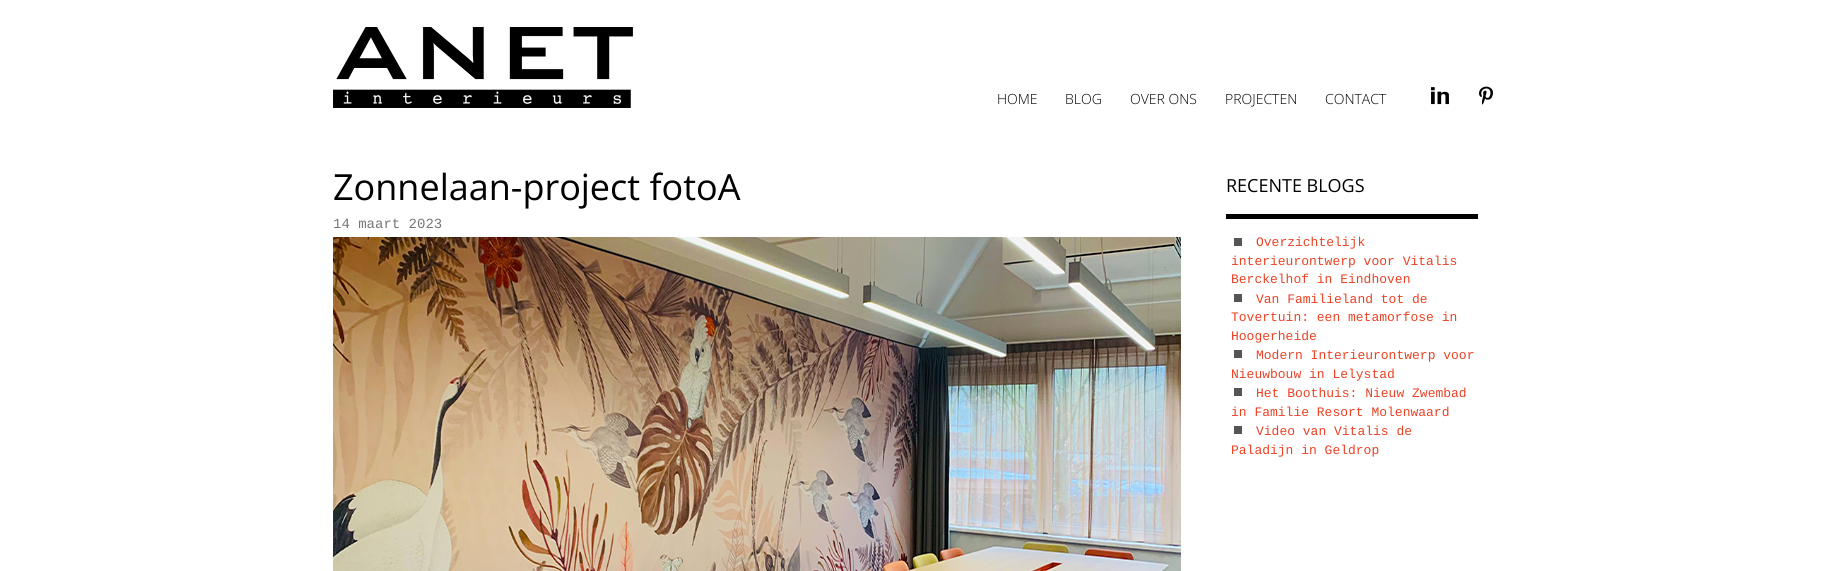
import math
import cairo

surface = cairo.ImageSurface(cairo.FORMAT_RGB24, 1826, 571)
ctx = cairo.Context(surface)
options = cairo.FontOptions()
options.set_hint_metrics(cairo.HINT_METRICS_OFF)
options.set_hint_style(cairo.HINT_STYLE_NONE)
ctx.set_font_options(options)
ctx.set_miter_limit(4)


def set_color(code):
    ctx.set_source_rgb(*(v / 255 for v in bytes.fromhex(code[-6:])))


def draw_text(x, y, s, family, size, color, bold=False, italic=False):
    ctx.select_font_face(family, cairo.FONT_SLANT_ITALIC if italic else cairo.FONT_SLANT_NORMAL, cairo.FONT_WEIGHT_BOLD if bold else cairo.FONT_WEIGHT_NORMAL)
    ctx.set_font_size(size)
    set_color(color)
    ctx.move_to(x, y)
    ctx.show_text(s)


def fill_rect(x, y, w, h, color):
    set_color(color)
    ctx.rectangle(x, y, w, h)
    ctx.fill()


def draw_image(path, x, y, w, h):
    ctx.save()
    ctx.set_source_surface(cairo.ImageSurface.create_from_png(path), x, y)
    ctx.rectangle(x, y, w, h)
    ctx.fill()
    ctx.restore()


set_color("#ffffff")
ctx.paint()
draw_image("assets/img1.png", 333, 27, 300, 81)
draw_text(997, 104, "HOME", "Open Sans Light", 14, "#000000")
draw_text(1065, 104, "BLOG", "Open Sans Light", 14, "#000000")
draw_text(1130, 104, "OVER ONS", "Open Sans Light", 14, "#000000")
draw_text(1225, 104, "PROJECTEN", "Open Sans Light", 14, "#000000")
draw_text(1325, 104, "CONTACT", "Open Sans Light", 14, "#000000")
draw_image("assets/img2.png", 1431, 87, 18, 18)
draw_image("assets/img3.png", 1479, 86, 14, 19)
draw_text(333, 200, "Zonnelaan-project fotoA", "Open Sans", 36, "#000000")
draw_text(333, 228, "14 maart 2023", "Liberation Mono", 14, "#777777")
draw_image("assets/img4.png", 333, 237, 848, 334)
fill_rect(1226, 214, 252, 5, "#000000")
draw_text(1226, 192, "RECENTE BLOGS", "Open Sans", 18, "#000000")
fill_rect(1234, 238, 8, 8, "#555555")
draw_text(1256, 246, "Overzichtelijk", "Liberation Mono", 13, "#eb4224")
draw_text(1231, 265, "interieurontwerp voor Vitalis", "Liberation Mono", 13, "#eb4224")
draw_text(1231, 283, "Berckelhof in Eindhoven", "Liberation Mono", 13, "#eb4224")
fill_rect(1234, 294, 8, 8, "#555555")
draw_text(1256, 303, "Van Familieland tot de", "Liberation Mono", 13, "#eb4224")
draw_text(1231, 321, "Tovertuin: een metamorfose in", "Liberation Mono", 13, "#eb4224")
draw_text(1231, 340, "Hoogerheide", "Liberation Mono", 13, "#eb4224")
fill_rect(1234, 350, 8, 8, "#555555")
draw_text(1256, 359, "Modern Interieurontwerp voor", "Liberation Mono", 13, "#eb4224")
draw_text(1231, 378, "Nieuwbouw in Lelystad", "Liberation Mono", 13, "#eb4224")
fill_rect(1234, 388, 8, 8, "#555555")
draw_text(1256, 397, "Het Boothuis: Nieuw Zwembad", "Liberation Mono", 13, "#eb4224")
draw_text(1231, 416, "in Familie Resort Molenwaard", "Liberation Mono", 13, "#eb4224")
fill_rect(1234, 426, 8, 8, "#555555")
draw_text(1256, 435, "Video van Vitalis de", "Liberation Mono", 13, "#eb4224")
draw_text(1231, 454, "Paladijn in Geldrop", "Liberation Mono", 13, "#eb4224")
surface.write_to_png("output.png")
